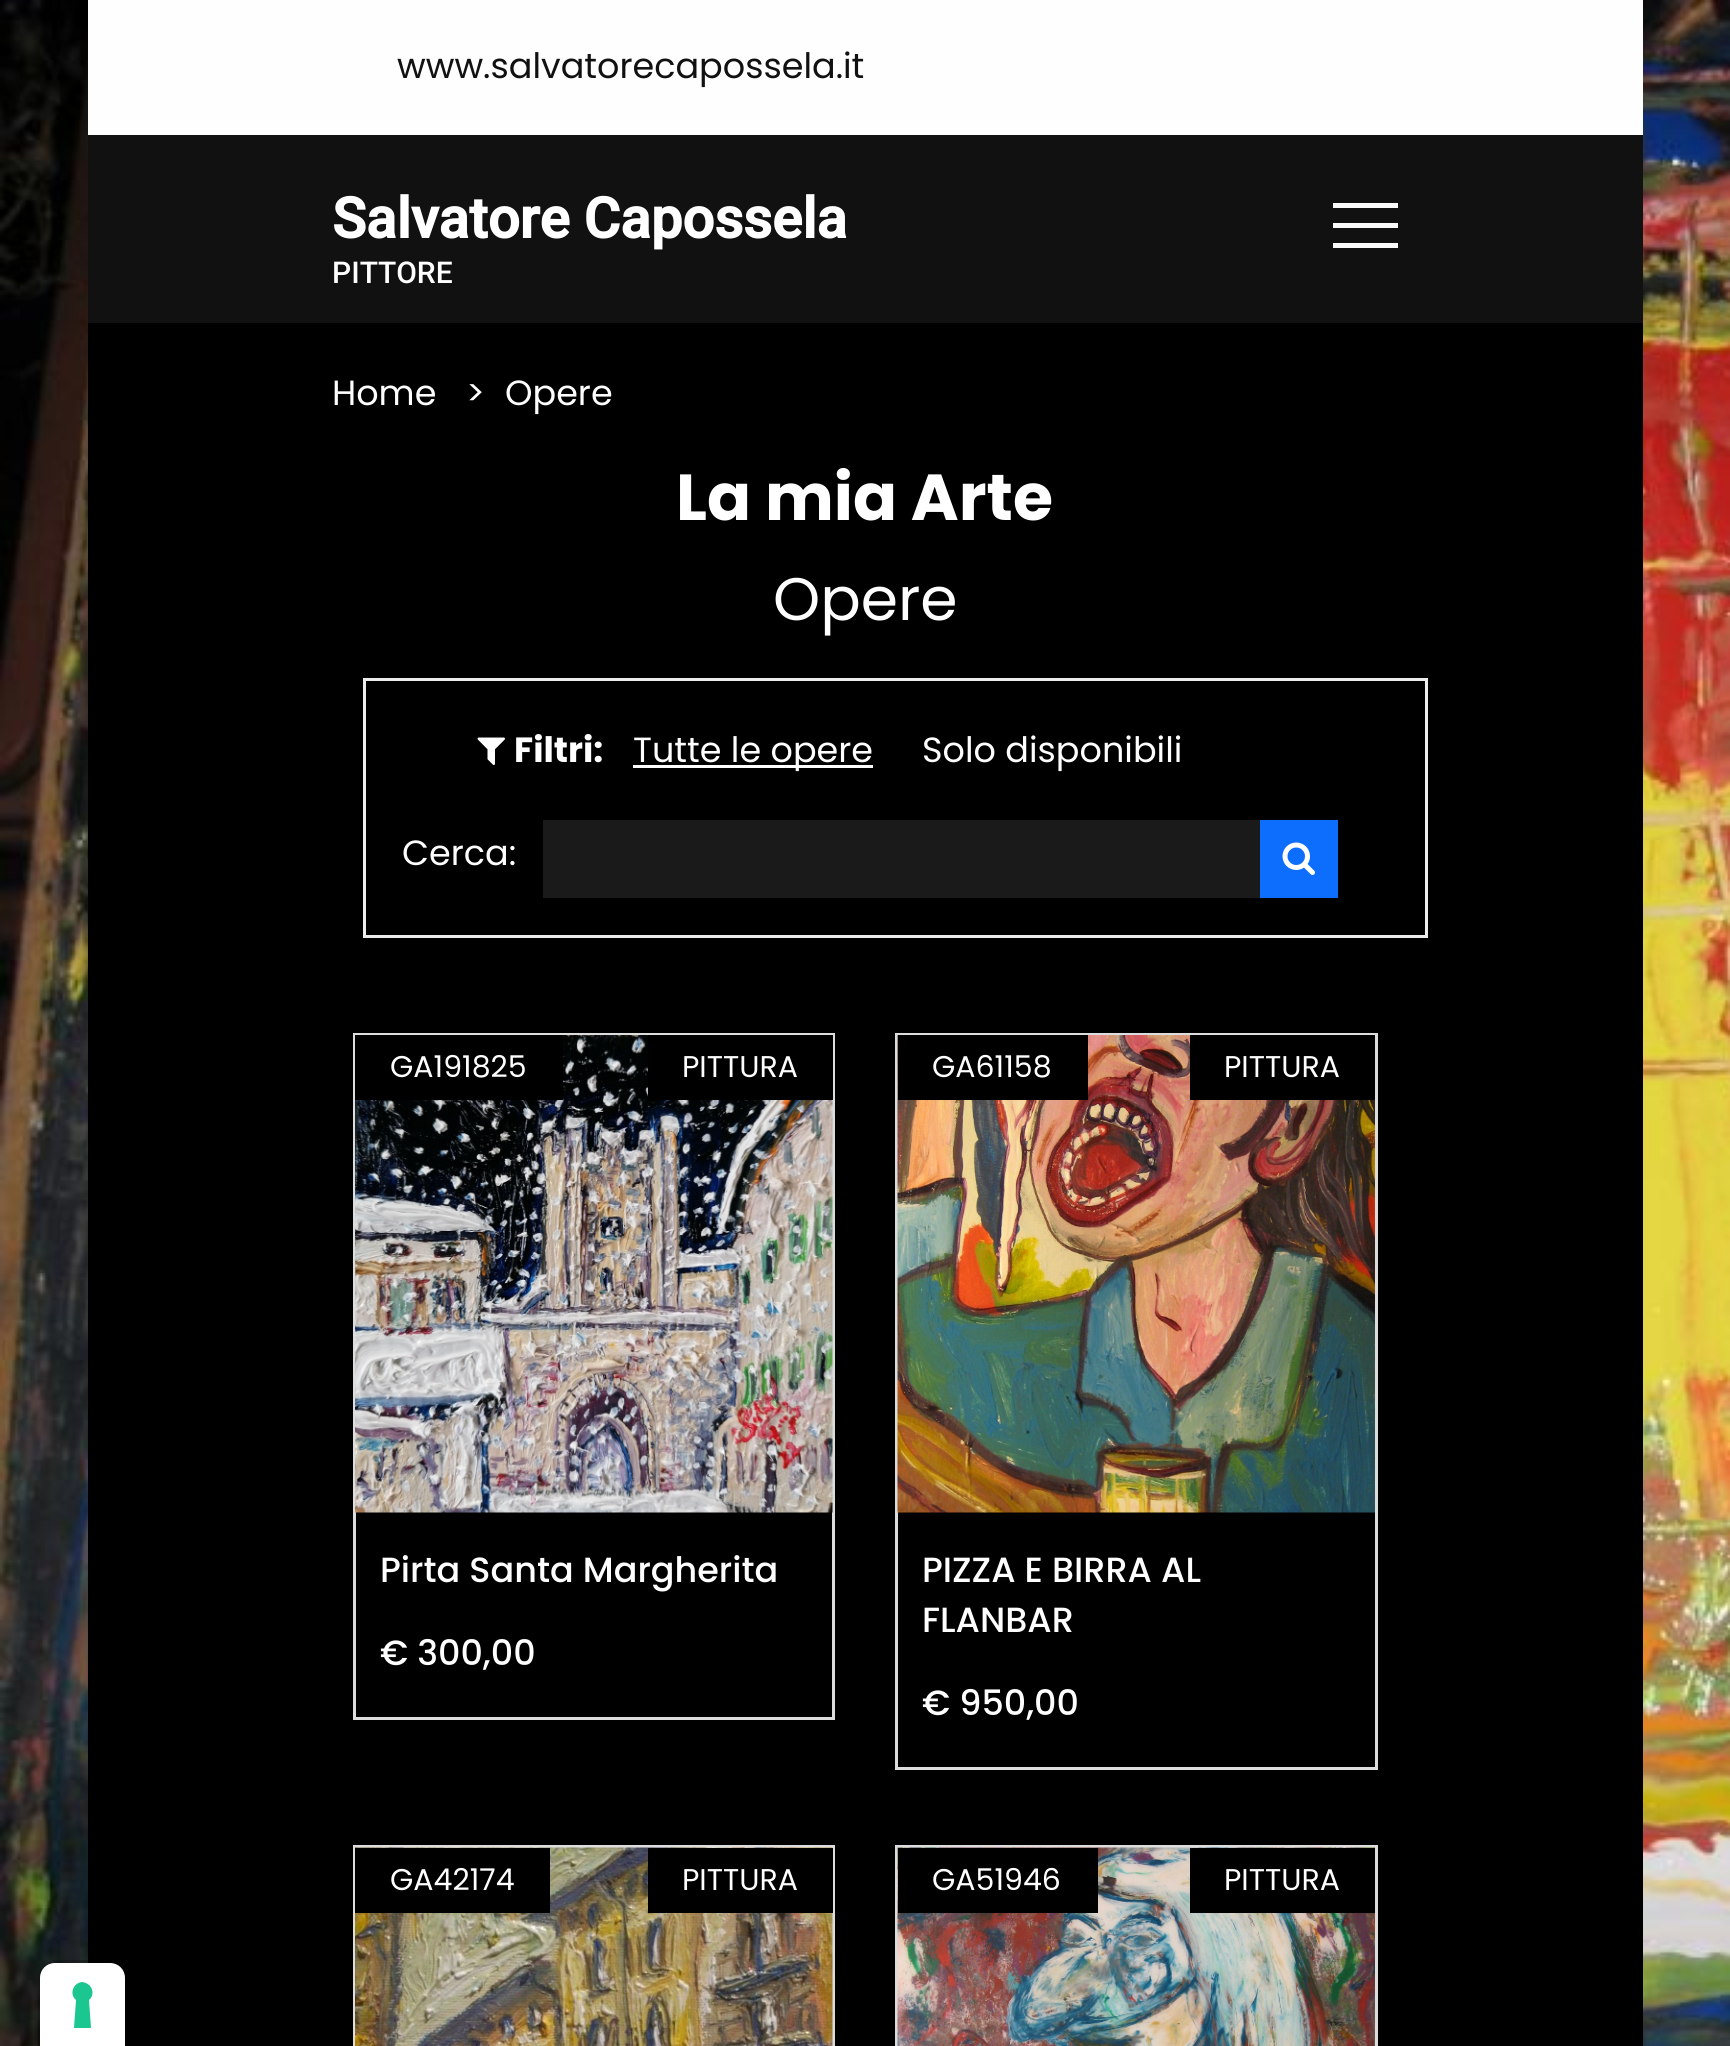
import math
import cairo

surface = cairo.ImageSurface(cairo.FORMAT_RGB24, 1730, 2046)
ctx = cairo.Context(surface)
options = cairo.FontOptions()
options.set_hint_metrics(cairo.HINT_METRICS_OFF)
options.set_hint_style(cairo.HINT_STYLE_NONE)
ctx.set_font_options(options)
ctx.set_miter_limit(4)


def set_color(code):
    ctx.set_source_rgb(*(v / 255 for v in bytes.fromhex(code[-6:])))


def draw_text(x, y, s, family, size, color, bold=False, italic=False):
    ctx.select_font_face(family, cairo.FONT_SLANT_ITALIC if italic else cairo.FONT_SLANT_NORMAL, cairo.FONT_WEIGHT_BOLD if bold else cairo.FONT_WEIGHT_NORMAL)
    ctx.set_font_size(size)
    set_color(color)
    ctx.move_to(x, y)
    ctx.show_text(s)


def fill_rect(x, y, w, h, color):
    set_color(color)
    ctx.rectangle(x, y, w, h)
    ctx.fill()


def draw_image(path, x, y, w, h):
    ctx.save()
    ctx.set_source_surface(cairo.ImageSurface.create_from_png(path), x, y)
    ctx.rectangle(x, y, w, h)
    ctx.fill()
    ctx.restore()


set_color("#ffffff")
ctx.paint()
draw_image("assets/img1.png", 0, 0, 1730, 2046)
fill_rect(88, 323, 1555, 1723, "#000000")
fill_rect(88, 0, 1555, 135, "#fefefe")
draw_text(397, 78, "www.salvatorecapossela.it", "Poppins", 35, "#111111")
fill_rect(88, 135, 1555, 188, "#111111")
draw_text(332, 238, "Salvatore Capossela", "Roboto", 56.25, "#ffffff", bold=True)
draw_text(332, 283, "PITTORE", "Roboto Medium", 30, "#ffffff")
fill_rect(1333, 223, 65, 5, "#fafafa")
fill_rect(1333, 203, 65, 5, "#fafafa")
fill_rect(1333, 243, 65, 5, "#fafafa")
draw_text(332, 405, "Home", "Poppins", 35, "#ffffff")
draw_text(466, 405, ">", "Poppins", 35, "#ffffff")
draw_text(505, 405, "Opere", "Poppins", 35, "#ffffff")
draw_text(676, 520, "La mia Arte", "Poppins", 65, "#ffffff", bold=True)
draw_text(773, 620, "Opere", "Poppins", 60, "#ffffff")
ctx.rectangle(364.5, 679.5, 1062, 257)
set_color("#ededed")
ctx.set_line_width(3)
ctx.stroke()
draw_image("assets/img2.png", 477, 737, 28, 28)
draw_text(514, 762, "Filtri:", "Poppins", 35, "#ffffff", bold=True)
fill_rect(633, 765, 240, 3, "#ffffff")
draw_text(633, 762, "Tutte le opere", "Poppins", 35, "#ffffff")
draw_text(922, 762, "Solo disponibili", "Poppins", 35, "#ffffff")
draw_text(402, 865, "Cerca:", "Poppins", 35, "#ffffff")
fill_rect(543, 820, 717, 78, "#1a1a1a")
fill_rect(1260, 820, 78, 78, "#0d6efd")
draw_image("assets/img3.png", 1282, 842, 33, 33)
ctx.rectangle(354.5, 1034.5, 479, 684)
set_color("#dddddd")
ctx.stroke()
draw_image("assets/img4.png", 355, 1035, 478, 478)
fill_rect(355, 1035, 208, 65, "#000000")
draw_text(390, 1077, "GA191825", "Poppins", 30, "#ffffff")
fill_rect(648, 1035, 185, 65, "#000000")
draw_text(682, 1077, "PITTURA", "Poppins", 30, "#ffffff")
draw_text(380, 1582, "Pirta Santa Margherita", "Poppins Medium", 35, "#ffffff")
draw_text(380, 1665, "€ 300,00", "Poppins Medium", 35, "#ffffff")
ctx.rectangle(896.5, 1034.5, 480, 734)
set_color("#dddddd")
ctx.stroke()
draw_image("assets/img5.png", 897, 1035, 478, 478)
fill_rect(898, 1035, 190, 65, "#000000")
draw_text(932, 1077, "GA61158", "Poppins", 30, "#ffffff")
fill_rect(1190, 1035, 185, 65, "#000000")
draw_text(1224, 1077, "PITTURA", "Poppins", 30, "#ffffff")
draw_text(922, 1582, "PIZZA E BIRRA AL", "Poppins Medium", 35, "#ffffff")
draw_text(922, 1632, "FLANBAR", "Poppins Medium", 35, "#ffffff")
draw_text(922, 1715, "€ 950,00", "Poppins Medium", 35, "#ffffff")
ctx.rectangle(354.5, 1846.5, 479, 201)
set_color("#dddddd")
ctx.stroke()
draw_image("assets/img6.png", 355, 1847, 478, 199)
fill_rect(355, 1848, 195, 65, "#000000")
draw_text(390, 1890, "GA42174", "Poppins", 30, "#ffffff")
fill_rect(648, 1848, 185, 65, "#000000")
draw_text(682, 1890, "PITTURA", "Poppins", 30, "#ffffff")
ctx.rectangle(896.5, 1846.5, 480, 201)
set_color("#dddddd")
ctx.stroke()
draw_image("assets/img7.png", 897, 1847, 478, 199)
fill_rect(898, 1848, 200, 65, "#000000")
draw_text(932, 1890, "GA51946", "Poppins", 30, "#ffffff")
fill_rect(1190, 1848, 185, 65, "#000000")
draw_text(1224, 1890, "PITTURA", "Poppins", 30, "#ffffff")
ctx.new_path()
ctx.move_to(56, 1961.5)
ctx.line_to(110, 1961.5)
ctx.curve_to(119, 1961.5, 126.5, 1969, 126.5, 1978)
ctx.line_to(126.5, 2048.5)
ctx.line_to(39.5, 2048.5)
ctx.line_to(39.5, 1978)
ctx.curve_to(39.5, 1969, 47, 1961.5, 56, 1961.5)
ctx.close_path()
ctx.set_source_rgba(0, 0, 0, 0.15)
ctx.stroke()
set_color("#ffffff")
ctx.new_path()
ctx.move_to(55, 1963)
ctx.line_to(110, 1963)
ctx.curve_to(118.5, 1963, 125, 1969.5, 125, 1978)
ctx.line_to(125, 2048)
ctx.line_to(40, 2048)
ctx.line_to(40, 1978)
ctx.curve_to(40, 1969.5, 46.5, 1963, 55, 1963)
ctx.close_path()
ctx.fill()
set_color("#1cc691")
ctx.set_fill_rule(cairo.FILL_RULE_EVEN_ODD)
ctx.new_path()
ctx.move_to(82, 1982)
ctx.curve_to(92, 1983, 96, 1994, 89, 2000)
ctx.line_to(91, 2028)
ctx.line_to(74, 2028)
ctx.line_to(76, 2000)
ctx.curve_to(69, 1994, 73, 1983, 82, 1982)
ctx.close_path()
ctx.fill()
surface.write_to_png("output.png")
